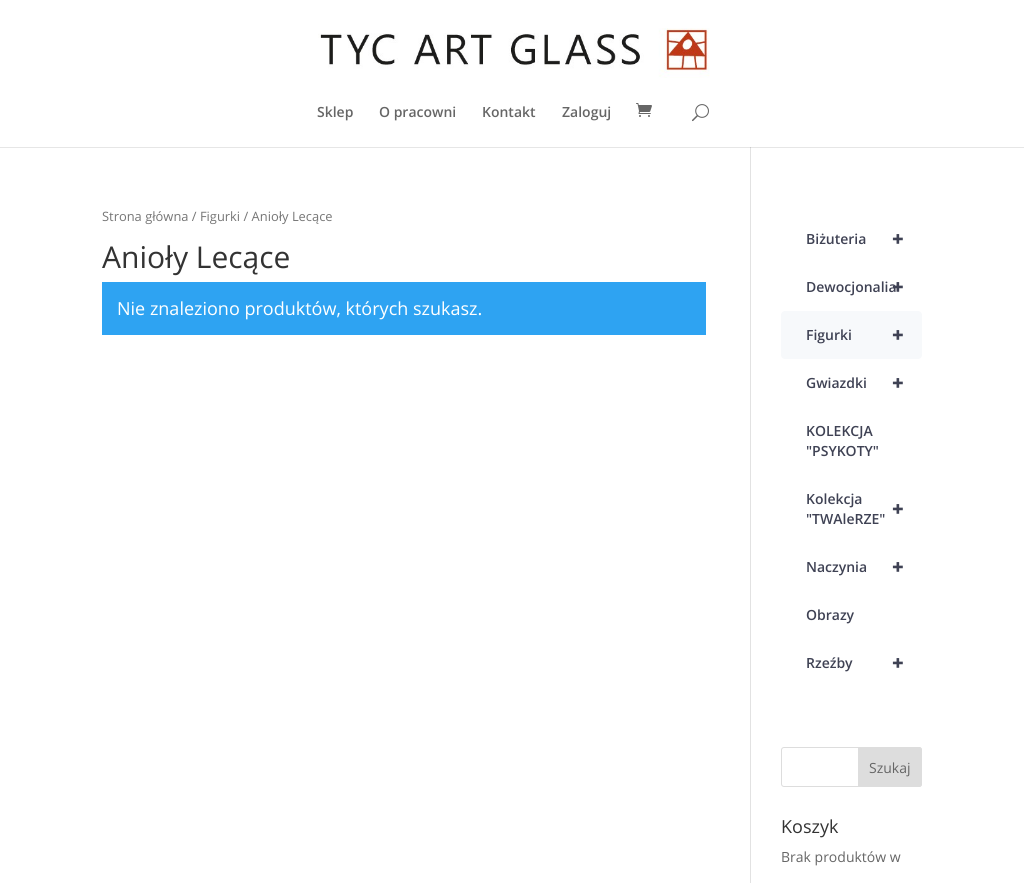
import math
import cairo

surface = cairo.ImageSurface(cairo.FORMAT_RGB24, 1024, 883)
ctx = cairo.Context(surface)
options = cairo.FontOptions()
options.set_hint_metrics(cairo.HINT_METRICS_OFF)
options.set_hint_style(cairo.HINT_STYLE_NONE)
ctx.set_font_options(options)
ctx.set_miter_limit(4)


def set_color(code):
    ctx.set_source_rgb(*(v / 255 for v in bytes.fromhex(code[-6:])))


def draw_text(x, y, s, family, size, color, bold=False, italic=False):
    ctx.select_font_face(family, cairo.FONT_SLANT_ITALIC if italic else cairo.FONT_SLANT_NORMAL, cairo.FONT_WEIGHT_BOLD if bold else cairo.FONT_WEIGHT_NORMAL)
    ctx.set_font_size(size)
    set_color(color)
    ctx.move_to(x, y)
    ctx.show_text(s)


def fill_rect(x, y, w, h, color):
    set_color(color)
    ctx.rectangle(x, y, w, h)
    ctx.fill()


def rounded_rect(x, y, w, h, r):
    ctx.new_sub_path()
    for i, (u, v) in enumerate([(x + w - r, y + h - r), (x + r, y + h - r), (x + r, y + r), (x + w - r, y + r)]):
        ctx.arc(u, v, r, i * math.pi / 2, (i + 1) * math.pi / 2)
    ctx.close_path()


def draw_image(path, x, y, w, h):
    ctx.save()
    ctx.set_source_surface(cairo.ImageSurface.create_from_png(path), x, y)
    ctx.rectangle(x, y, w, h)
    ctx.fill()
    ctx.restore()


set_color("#ffffff")
ctx.paint()
fill_rect(0, 147, 1024, 1, "#e6e6e6")
draw_image("assets/img1.png", 318, 28, 392, 50)
draw_text(317, 117, "Sklep", "Open Sans SemiBold", 14, "#666666")
draw_text(379, 117, "O pracowni", "Open Sans SemiBold", 14, "#666666")
draw_text(482, 117, "Kontakt", "Open Sans SemiBold", 14, "#666666")
draw_text(562, 117, "Zaloguj", "Open Sans SemiBold", 14, "#666666")
draw_image("assets/img2.png", 636, 103, 16, 14)
draw_image("assets/img3.png", 692, 104, 17, 18)
fill_rect(750, 147, 1, 736, "#e2e2e2")
fill_rect(750, 147, 1, 1, "#cbcbcb")
draw_text(102, 221, "Strona główna / Figurki / Anioły Lecące", "Open Sans", 12.9, "#767676")
draw_text(102, 268, "Anioły Lecące", "Open Sans", 30, "#333333")
fill_rect(102, 282, 604, 53, "#2ea3f2")
draw_text(117, 315, "Nie znaleziono produktów, których szukasz.", "Open Sans", 18, "#ffffff")
draw_text(806, 244, "Biżuteria", "Open Sans SemiBold", 14, "#3f4254")
draw_text(892, 246, "+", "Open Sans ExtraBold", 20, "#3f4254")
draw_text(806, 292, "Dewocjonalia", "Open Sans SemiBold", 14, "#3f4254")
draw_text(892, 294, "+", "Open Sans ExtraBold", 20, "#3f4254")
set_color("#f7f9fb")
rounded_rect(781, 311, 141, 48, 4)
ctx.fill()
draw_text(806, 340, "Figurki", "Open Sans SemiBold", 14, "#3f4254")
draw_text(892, 342, "+", "Open Sans ExtraBold", 20, "#3f4254")
draw_text(806, 388, "Gwiazdki", "Open Sans SemiBold", 14, "#3f4254")
draw_text(892, 390, "+", "Open Sans ExtraBold", 20, "#3f4254")
draw_text(806, 436, "KOLEKCJA", "Open Sans SemiBold", 14, "#3f4254")
draw_text(806, 456, "\"PSYKOTY\"", "Open Sans SemiBold", 14, "#3f4254")
draw_text(806, 504, "Kolekcja", "Open Sans SemiBold", 14, "#3f4254")
draw_text(892, 516, "+", "Open Sans ExtraBold", 20, "#3f4254")
draw_text(806, 524, "\"TWAleRZE\"", "Open Sans SemiBold", 14, "#3f4254")
draw_text(806, 572, "Naczynia", "Open Sans SemiBold", 14, "#3f4254")
draw_text(892, 574, "+", "Open Sans ExtraBold", 20, "#3f4254")
draw_text(806, 620, "Obrazy", "Open Sans SemiBold", 14, "#3f4254")
draw_text(806, 668, "Rzeźby", "Open Sans SemiBold", 14, "#3f4254")
draw_text(892, 670, "+", "Open Sans ExtraBold", 20, "#3f4254")
rounded_rect(781.5, 747.5, 140, 39, 2.5)
set_color("#dddddd")
ctx.set_line_width(1)
ctx.stroke()
ctx.new_path()
ctx.move_to(858.5, 747.5)
ctx.line_to(919, 747.5)
ctx.curve_to(920.5, 747.5, 921.5, 748.5, 921.5, 750)
ctx.line_to(921.5, 784)
ctx.curve_to(921.5, 785.5, 920.5, 786.5, 919, 786.5)
ctx.line_to(858.5, 786.5)
ctx.close_path()
ctx.fill_preserve()
ctx.stroke()
draw_text(869, 773, "Szukaj", "Open Sans", 14, "#666666")
draw_text(781, 833, "Koszyk", "Open Sans", 18, "#333333")
draw_text(781, 862, "Brak produktów w", "Open Sans", 14, "#666666")
surface.write_to_png("output.png")
